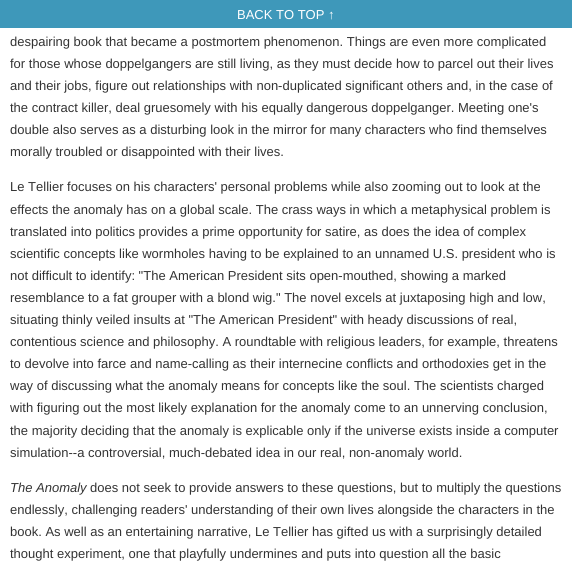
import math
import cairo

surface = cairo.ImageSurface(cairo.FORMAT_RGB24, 572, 569)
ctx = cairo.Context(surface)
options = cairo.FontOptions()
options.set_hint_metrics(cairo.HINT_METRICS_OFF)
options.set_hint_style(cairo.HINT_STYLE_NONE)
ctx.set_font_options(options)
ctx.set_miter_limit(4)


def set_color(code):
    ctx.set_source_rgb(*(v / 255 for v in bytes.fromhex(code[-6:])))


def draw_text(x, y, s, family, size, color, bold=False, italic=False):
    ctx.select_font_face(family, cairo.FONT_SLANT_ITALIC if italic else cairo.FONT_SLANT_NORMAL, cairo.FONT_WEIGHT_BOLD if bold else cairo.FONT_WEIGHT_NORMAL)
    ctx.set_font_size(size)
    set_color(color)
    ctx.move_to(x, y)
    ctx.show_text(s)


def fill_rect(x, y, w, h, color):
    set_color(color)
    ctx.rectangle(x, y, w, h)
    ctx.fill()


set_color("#ffffff")
ctx.paint()
fill_rect(0, 0, 572, 28, "#3e98ba")
draw_text(237, 19, "BACK TO TOP ↑", "Liberation Sans", 13, "#ffffff")
draw_text(10, 46, "despairing book that became a postmortem phenomenon. Things are even more complicated", "Liberation Sans", 13, "#333333")
draw_text(10, 68, "for those whose doppelgangers are still living, as they must decide how to parcel out their lives", "Liberation Sans", 13, "#333333")
draw_text(10, 90, "and their jobs, figure out relationships with non-duplicated significant others and, in the case of", "Liberation Sans", 13, "#333333")
draw_text(10, 112, "the contract killer, deal gruesomely with his equally dangerous doppelganger. Meeting one's", "Liberation Sans", 13, "#333333")
draw_text(10, 134, "double also serves as a disturbing look in the mirror for many characters who find themselves", "Liberation Sans", 13, "#333333")
draw_text(10, 156, "morally troubled or disappointed with their lives.", "Liberation Sans", 13, "#333333")
draw_text(10, 191, "Le Tellier focuses on his characters' personal problems while also zooming out to look at the", "Liberation Sans", 13, "#333333")
draw_text(10, 214, "effects the anomaly has on a global scale. The crass ways in which a metaphysical problem is", "Liberation Sans", 13, "#333333")
draw_text(10, 236, "translated into politics provides a prime opportunity for satire, as does the idea of complex", "Liberation Sans", 13, "#333333")
draw_text(10, 258, "scientific concepts like wormholes having to be explained to an unnamed U.S. president who is", "Liberation Sans", 13, "#333333")
draw_text(10, 280, "not difficult to identify: \"The American President sits open-mouthed, showing a marked", "Liberation Sans", 13, "#333333")
draw_text(10, 302, "resemblance to a fat grouper with a blond wig.\" The novel excels at juxtaposing high and low,", "Liberation Sans", 13, "#333333")
draw_text(10, 324, "situating thinly veiled insults at \"The American President\" with heady discussions of real,", "Liberation Sans", 13, "#333333")
draw_text(10, 346, "contentious science and philosophy. A roundtable with religious leaders, for example, threatens", "Liberation Sans", 13, "#333333")
draw_text(10, 368, "to devolve into farce and name-calling as their internecine conflicts and orthodoxies get in the", "Liberation Sans", 13, "#333333")
draw_text(10, 390, "way of discussing what the anomaly means for concepts like the soul. The scientists charged", "Liberation Sans", 13, "#333333")
draw_text(10, 412, "with figuring out the most likely explanation for the anomaly come to an unnerving conclusion,", "Liberation Sans", 13, "#333333")
draw_text(10, 435, "the majority deciding that the anomaly is explicable only if the universe exists inside a computer", "Liberation Sans", 13, "#333333")
draw_text(10, 457, "simulation--a controversial, much-debated idea in our real, non-anomaly world.", "Liberation Sans", 13, "#333333")
draw_text(10, 492, "The Anomaly", "Liberation Sans", 13, "#333333", italic=True)
draw_text(90, 492, "does not seek to provide answers to these questions, but to multiply the questions", "Liberation Sans", 13, "#333333")
draw_text(10, 514, "endlessly, challenging readers' understanding of their own lives alongside the characters in the", "Liberation Sans", 13, "#333333")
draw_text(10, 536, "book. As well as an entertaining narrative, Le Tellier has gifted us with a surprisingly detailed", "Liberation Sans", 13, "#333333")
draw_text(10, 558, "thought experiment, one that playfully undermines and puts into question all the basic", "Liberation Sans", 13, "#333333")
surface.write_to_png("output.png")
